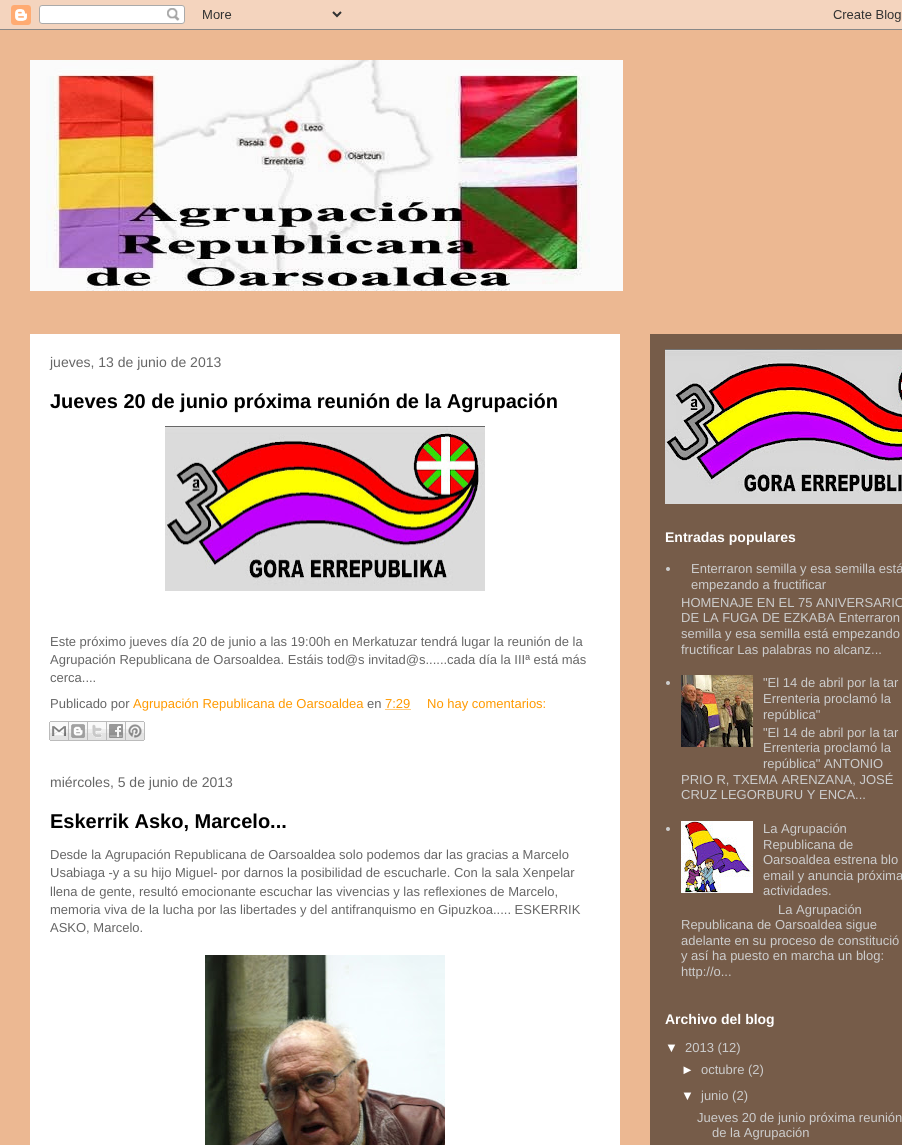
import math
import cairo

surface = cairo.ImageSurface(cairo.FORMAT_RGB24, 902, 1145)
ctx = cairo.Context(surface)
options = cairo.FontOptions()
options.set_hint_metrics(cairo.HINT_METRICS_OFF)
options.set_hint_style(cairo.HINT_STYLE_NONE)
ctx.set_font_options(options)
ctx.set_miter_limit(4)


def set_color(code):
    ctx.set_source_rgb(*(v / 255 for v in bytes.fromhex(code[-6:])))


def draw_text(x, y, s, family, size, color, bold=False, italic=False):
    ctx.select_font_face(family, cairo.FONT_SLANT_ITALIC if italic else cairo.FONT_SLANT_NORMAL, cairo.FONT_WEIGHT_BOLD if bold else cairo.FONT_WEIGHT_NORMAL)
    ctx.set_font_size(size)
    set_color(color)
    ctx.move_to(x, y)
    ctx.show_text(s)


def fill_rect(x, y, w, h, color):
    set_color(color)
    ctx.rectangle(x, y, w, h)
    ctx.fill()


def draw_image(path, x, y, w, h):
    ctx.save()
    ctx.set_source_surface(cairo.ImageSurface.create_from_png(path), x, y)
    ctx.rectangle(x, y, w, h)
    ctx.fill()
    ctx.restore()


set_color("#ecb892")
ctx.paint()
draw_image("assets/img1.png", 0, 0, 902, 30)
draw_image("assets/img2.png", 30, 60, 593, 231)
fill_rect(650, 334, 252, 811, "#765c49")
fill_rect(30, 334, 590, 811, "#ffffff")
draw_text(50, 367, "jueves, 13 de junio de 2013", "Liberation Sans", 14, "#666666")
draw_text(50, 408, "Jueves 20 de junio próxima reunión de la Agrupación", "Liberation Sans", 20, "#000000", bold=True)
draw_image("assets/img3.png", 165, 426, 320, 165)
draw_text(50, 646, "Este próximo jueves día 20 de junio a las 19:00h en Merkatuzar tendrá lugar la reunión de la", "Liberation Sans", 13, "#666666")
draw_text(50, 664, "Agrupación Republicana de Oarsoaldea. Estáis tod@s invitad@s......cada día la IIIª está más", "Liberation Sans", 13, "#666666")
draw_text(50, 682, "cerca....", "Liberation Sans", 13, "#666666")
draw_text(50, 708, "Publicado por", "Liberation Sans", 13, "#666666")
draw_text(133, 708, "Agrupación Republicana de Oarsoaldea", "Liberation Sans", 13, "#ff9900")
draw_text(367, 708, "en", "Liberation Sans", 13, "#666666")
draw_text(385, 708, "7:29", "Liberation Sans", 13, "#ff9900")
ctx.new_path()
ctx.move_to(385.5, 709.5)
ctx.line_to(410.5, 709.5)
ctx.set_line_width(1)
ctx.set_dash([1, 1])
ctx.stroke()
draw_text(427, 708, "No hay comentarios:", "Liberation Sans", 13, "#ff9900")
draw_image("assets/img4.png", 49, 721, 20, 20)
draw_image("assets/img5.png", 69, 721, 19, 20)
draw_image("assets/img6.png", 88, 721, 19, 20)
draw_image("assets/img7.png", 107, 721, 19, 20)
draw_image("assets/img8.png", 126, 721, 19, 20)
draw_text(50, 787, "miércoles, 5 de junio de 2013", "Liberation Sans", 14, "#666666")
draw_text(50, 828, "Eskerrik Asko, Marcelo...", "Liberation Sans", 20, "#000000", bold=True)
draw_text(50, 859, "Desde la Agrupación Republicana de Oarsoaldea solo podemos dar las gracias a Marcelo", "Liberation Sans", 13, "#666666")
draw_text(50, 877, "Usabiaga -y a su hijo Miguel- por darnos la posibilidad de escucharle. Con la sala Xenpelar", "Liberation Sans", 13, "#666666")
draw_text(50, 896, "llena de gente, resultó emocionante escuchar las vivencias y las reflexiones de Marcelo,", "Liberation Sans", 13, "#666666")
draw_text(50, 914, "memoria viva de la lucha por las libertades y del antifranquismo en Gipuzkoa..... ESKERRIK", "Liberation Sans", 13, "#666666")
draw_text(50, 932, "ASKO, Marcelo.", "Liberation Sans", 13, "#666666")
draw_image("assets/img9.png", 205, 955, 240, 190)
draw_image("assets/img10.png", 665, 349, 237, 155)
draw_text(665, 542, "Entradas populares", "Liberation Sans", 14, "#ffffff", bold=True)
set_color("#cccccc")
ctx.new_path()
ctx.arc(668, 569, 2, 0, 2 * math.pi)
ctx.fill()
draw_text(691, 573, "Enterraron semilla y esa semilla está", "Liberation Sans", 13, "#cccccc")
draw_text(691, 589, "empezando a fructificar", "Liberation Sans", 13, "#cccccc")
draw_text(681, 607, "HOMENAJE EN EL 75 ANIVERSARIO", "Liberation Sans", 13, "#cccccc")
draw_text(681, 622, "DE LA FUGA DE EZKABA Enterraron", "Liberation Sans", 13, "#cccccc")
draw_text(681, 638, "semilla y esa semilla está empezando", "Liberation Sans", 13, "#cccccc")
draw_text(681, 654, "fructificar Las palabras no alcanz...", "Liberation Sans", 13, "#cccccc")
ctx.new_path()
ctx.arc(668, 683, 2, 0, 2 * math.pi)
ctx.fill()
draw_image("assets/img11.png", 681, 675, 72, 72)
draw_text(763, 687, "\"El 14 de abril por la tar", "Liberation Sans", 13, "#cccccc")
draw_text(763, 703, "Errenteria proclamó la", "Liberation Sans", 13, "#cccccc")
draw_text(763, 719, "república\"", "Liberation Sans", 13, "#cccccc")
draw_text(763, 737, "\"El 14 de abril por la tar", "Liberation Sans", 13, "#cccccc")
draw_text(763, 752, "Errenteria proclamó la", "Liberation Sans", 13, "#cccccc")
draw_text(763, 768, "república\" ANTONIO", "Liberation Sans", 13, "#cccccc")
draw_text(681, 784, "PRIO R, TXEMA ARENZANA, JOSÉ", "Liberation Sans", 13, "#cccccc")
draw_text(681, 799, "CRUZ LEGORBURU Y ENCA...", "Liberation Sans", 13, "#cccccc")
ctx.new_path()
ctx.arc(668, 829, 2, 0, 2 * math.pi)
ctx.fill()
draw_image("assets/img12.png", 681, 821, 72, 72)
draw_text(763, 833, "La Agrupación", "Liberation Sans", 13, "#cccccc")
draw_text(763, 849, "Republicana de", "Liberation Sans", 13, "#cccccc")
draw_text(763, 864, "Oarsoaldea estrena blo", "Liberation Sans", 13, "#cccccc")
draw_text(763, 880, "email y anuncia próxima", "Liberation Sans", 13, "#cccccc")
draw_text(763, 895, "actividades.", "Liberation Sans", 13, "#cccccc")
draw_text(778, 914, "La Agrupación", "Liberation Sans", 13, "#cccccc")
draw_text(681, 929, "Republicana de Oarsoaldea sigue", "Liberation Sans", 13, "#cccccc")
draw_text(681, 945, "adelante en su proceso de constitució", "Liberation Sans", 13, "#cccccc")
draw_text(681, 960, "y así ha puesto en marcha un blog:", "Liberation Sans", 13, "#cccccc")
draw_text(681, 976, "http://o...", "Liberation Sans", 13, "#cccccc")
draw_text(665, 1024, "Archivo del blog", "Liberation Sans", 14, "#ffffff", bold=True)
draw_text(665, 1052, "▼", "Liberation Sans", 13, "#ffffff")
draw_text(685, 1052, "2013 (12)", "Liberation Sans", 13, "#cccccc")
draw_text(681, 1074, "►", "Liberation Sans", 13, "#ffffff")
draw_text(701, 1074, "octubre (2)", "Liberation Sans", 13, "#cccccc")
draw_text(681, 1100, "▼", "Liberation Sans", 13, "#ffffff")
draw_text(701, 1100, "junio (2)", "Liberation Sans", 13, "#cccccc")
draw_text(697, 1122, "Jueves 20 de junio próxima reunión", "Liberation Sans", 13, "#cccccc")
draw_text(712, 1137, "de la Agrupación", "Liberation Sans", 13, "#cccccc")
surface.write_to_png("output.png")
